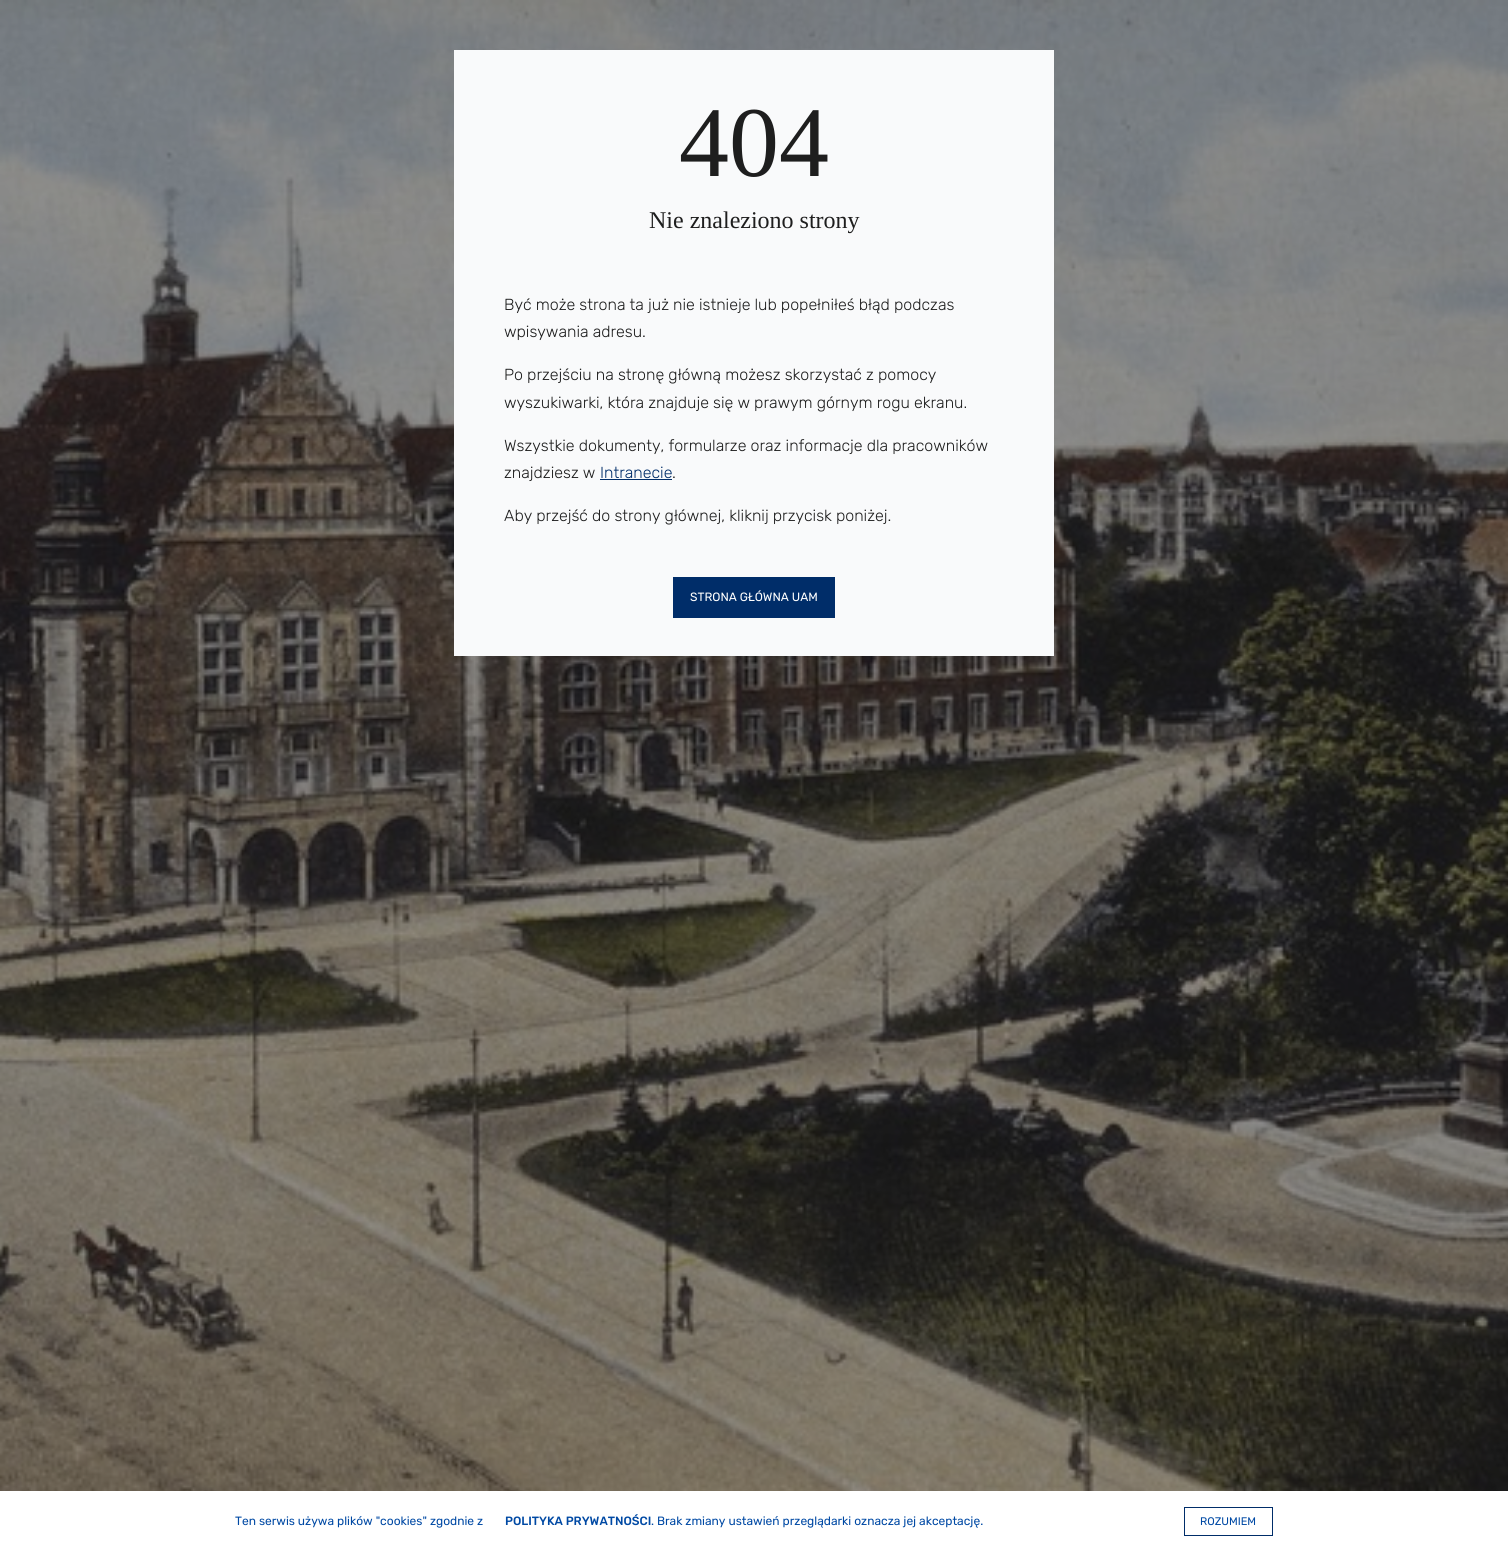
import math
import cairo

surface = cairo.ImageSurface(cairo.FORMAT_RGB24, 1508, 1552)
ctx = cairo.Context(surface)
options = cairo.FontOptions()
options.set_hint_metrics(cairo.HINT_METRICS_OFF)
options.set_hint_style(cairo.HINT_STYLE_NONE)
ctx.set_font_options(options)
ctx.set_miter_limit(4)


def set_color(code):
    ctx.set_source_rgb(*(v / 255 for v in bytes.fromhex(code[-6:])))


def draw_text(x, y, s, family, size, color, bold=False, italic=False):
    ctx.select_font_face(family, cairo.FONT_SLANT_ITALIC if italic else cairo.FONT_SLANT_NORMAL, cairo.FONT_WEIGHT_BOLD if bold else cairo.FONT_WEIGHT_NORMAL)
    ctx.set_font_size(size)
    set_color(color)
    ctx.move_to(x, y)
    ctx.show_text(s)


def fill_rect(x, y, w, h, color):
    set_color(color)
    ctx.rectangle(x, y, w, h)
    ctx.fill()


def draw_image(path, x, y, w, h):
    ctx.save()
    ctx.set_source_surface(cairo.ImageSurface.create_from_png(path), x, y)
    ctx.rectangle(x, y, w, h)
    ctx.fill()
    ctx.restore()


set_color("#ffffff")
ctx.paint()
draw_image("assets/img1.png", 0, 0, 1508, 1491)
fill_rect(454, 50, 600, 606, "#f9fafb")
draw_text(679, 176, "404", "Tinos", 100, "#1e1e1e")
draw_text(649, 228, "Nie znaleziono strony", "Tinos", 24, "#1e1e1e")
draw_text(504, 310, "Być może strona ta już nie istnieje lub popełniłeś błąd podczas", "Rubik Light", 16, "#1e1e1e")
draw_text(504, 337, "wpisywania adresu.", "Rubik Light", 16, "#1e1e1e")
draw_text(504, 380, "Po przejściu na stronę główną możesz skorzystać z pomocy", "Rubik Light", 16, "#1e1e1e")
draw_text(504, 408, "wyszukiwarki, która znajduje się w prawym górnym rogu ekranu.", "Rubik Light", 16, "#1e1e1e")
draw_text(504, 451, "Wszystkie dokumenty, formularze oraz informacje dla pracowników", "Rubik Light", 16, "#1e1e1e")
draw_text(504, 478, "znajdziesz w", "Rubik Light", 16, "#1e1e1e")
draw_text(600, 478, "Intranecie", "Rubik Light", 16, "#002d69")
fill_rect(600, 479, 72, 1, "#002d69")
draw_text(672, 478, ".", "Rubik Light", 16, "#1e1e1e")
draw_text(504, 521, "Aby przejść do strony głównej, kliknij przycisk poniżej.", "Rubik Light", 16, "#1e1e1e")
fill_rect(673, 577, 162, 41, "#002d69")
draw_text(690, 601, "STRONA GŁÓWNA UAM", "Rubik", 12, "#ffffff")
draw_text(235, 1525, "Ten serwis używa plików \"cookies\" zgodnie z", "Rubik", 12, "#0049a4")
draw_text(505, 1525, "POLITYKA PRYWATNOŚCI", "Rubik Medium", 12, "#0049a4")
draw_text(651, 1525, ". Brak zmiany ustawień przeglądarki oznacza jej akceptację.", "Rubik", 12, "#0049a4")
ctx.rectangle(1184.5, 1507.5, 88, 28)
set_color("#002d69")
ctx.set_line_width(1)
ctx.stroke()
draw_text(1200, 1525, "ROZUMIEM", "Rubik", 11, "#0049a4")
surface.write_to_png("output.png")
